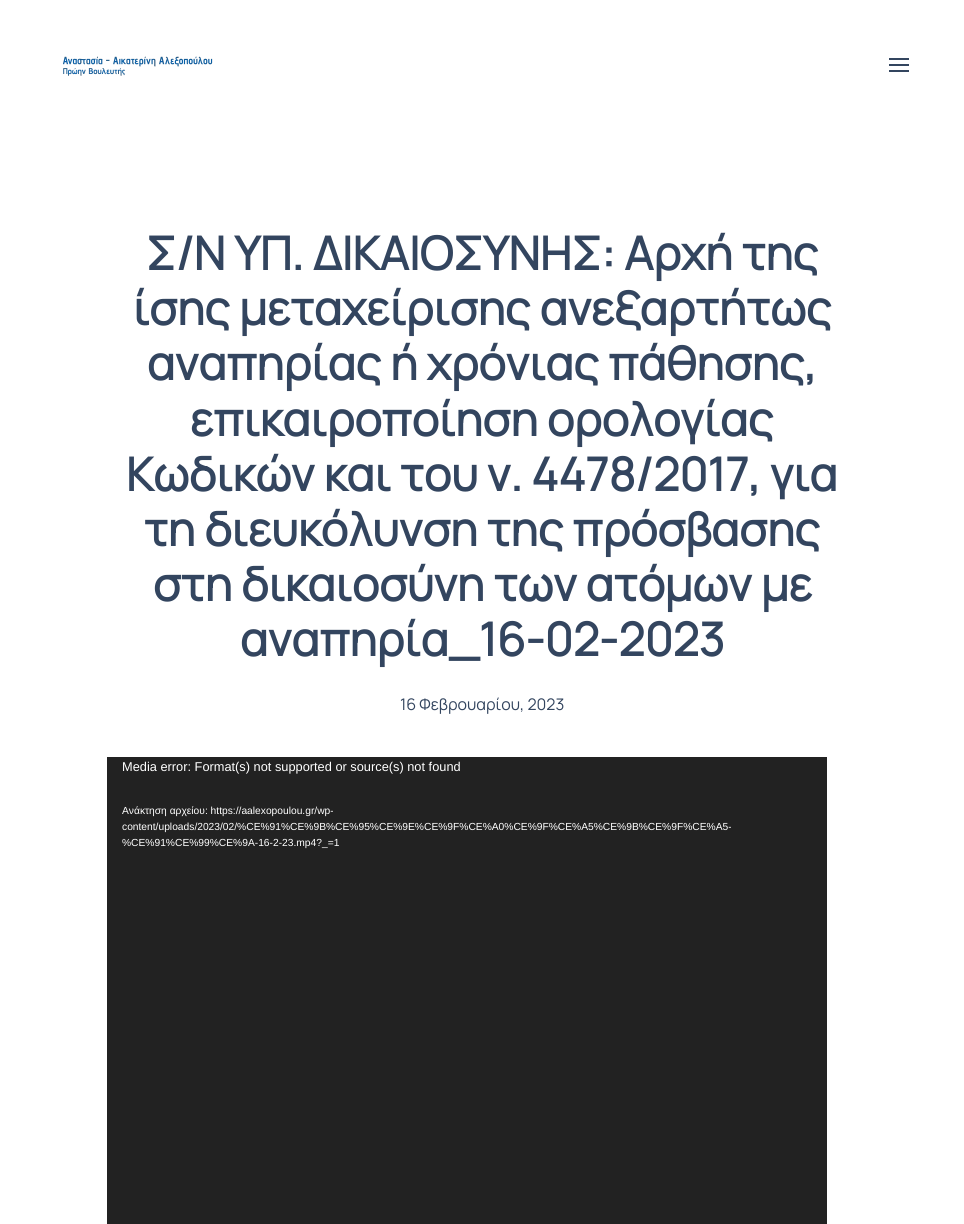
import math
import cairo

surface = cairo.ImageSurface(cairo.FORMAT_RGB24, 964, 1224)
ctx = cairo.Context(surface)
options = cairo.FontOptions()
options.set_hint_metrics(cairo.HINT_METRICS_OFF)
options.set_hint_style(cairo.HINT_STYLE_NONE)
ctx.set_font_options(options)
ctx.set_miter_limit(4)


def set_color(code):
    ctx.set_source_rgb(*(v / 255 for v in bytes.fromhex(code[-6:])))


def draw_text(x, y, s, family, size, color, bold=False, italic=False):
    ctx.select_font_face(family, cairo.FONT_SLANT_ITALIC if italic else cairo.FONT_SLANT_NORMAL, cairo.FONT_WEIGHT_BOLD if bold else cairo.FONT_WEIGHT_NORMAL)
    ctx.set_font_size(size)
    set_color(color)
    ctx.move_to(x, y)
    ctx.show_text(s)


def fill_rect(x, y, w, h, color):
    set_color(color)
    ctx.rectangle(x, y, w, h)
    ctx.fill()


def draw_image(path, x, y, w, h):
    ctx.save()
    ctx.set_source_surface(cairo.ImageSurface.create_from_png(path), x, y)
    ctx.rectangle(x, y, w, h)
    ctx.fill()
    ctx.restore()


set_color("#ffffff")
ctx.paint()
draw_image("assets/img1.png", 63, 56, 150, 20)
fill_rect(889, 58, 20, 2, "#33455f")
fill_rect(889, 64, 20, 2, "#33455f")
fill_rect(889, 70, 20, 2, "#33455f")
draw_text(146, 270, "Σ/Ν ΥΠ. ΔΙΚΑΙΟΣΥΝΗΣ: Αρχή της", "Manrope", 46, "#33455f", bold=True)
draw_text(133, 325, "ίσης μεταχείρισης ανεξαρτήτως", "Manrope", 46, "#33455f", bold=True)
draw_text(147, 380, "αναπηρίας ή χρόνιας πάθησης,", "Manrope", 46, "#33455f", bold=True)
draw_text(190, 436, "επικαιροποίηση ορολογίας", "Manrope", 46, "#33455f", bold=True)
draw_text(126, 491, "Κωδικών και του ν. 4478/2017, για", "Manrope", 46, "#33455f", bold=True)
draw_text(144, 546, "τη διευκόλυνση της πρόσβασης", "Manrope", 46, "#33455f", bold=True)
draw_text(153, 601, "στη δικαιοσύνη των ατόμων με", "Manrope", 46, "#33455f", bold=True)
draw_text(240, 656, "αναπηρία_16-02-2023", "Manrope", 46, "#33455f", bold=True)
draw_text(400, 710, "16 Φεβρουαρίου, 2023", "Manrope ExtraLight", 16, "#33455f")
fill_rect(107, 757, 720, 467, "#222222")
draw_text(122, 771, "Media error: Format(s) not supported or source(s) not found", "Liberation Sans", 12.8, "#ffffff")
draw_text(122, 814, "Ανάκτηση αρχείου: https://aalexopoulou.gr/wp-", "Liberation Sans", 10.25, "#ffffff")
draw_text(122, 830, "content/uploads/2023/02/%CE%91%CE%9B%CE%95%CE%9E%CE%9F%CE%A0%CE%9F%CE%A5%CE%9B%CE%9F%CE%A5-", "Liberation Sans", 10.25, "#ffffff")
draw_text(122, 846, "%CE%91%CE%99%CE%9A-16-2-23.mp4?_=1", "Liberation Sans", 10.25, "#ffffff")
surface.write_to_png("output.png")
